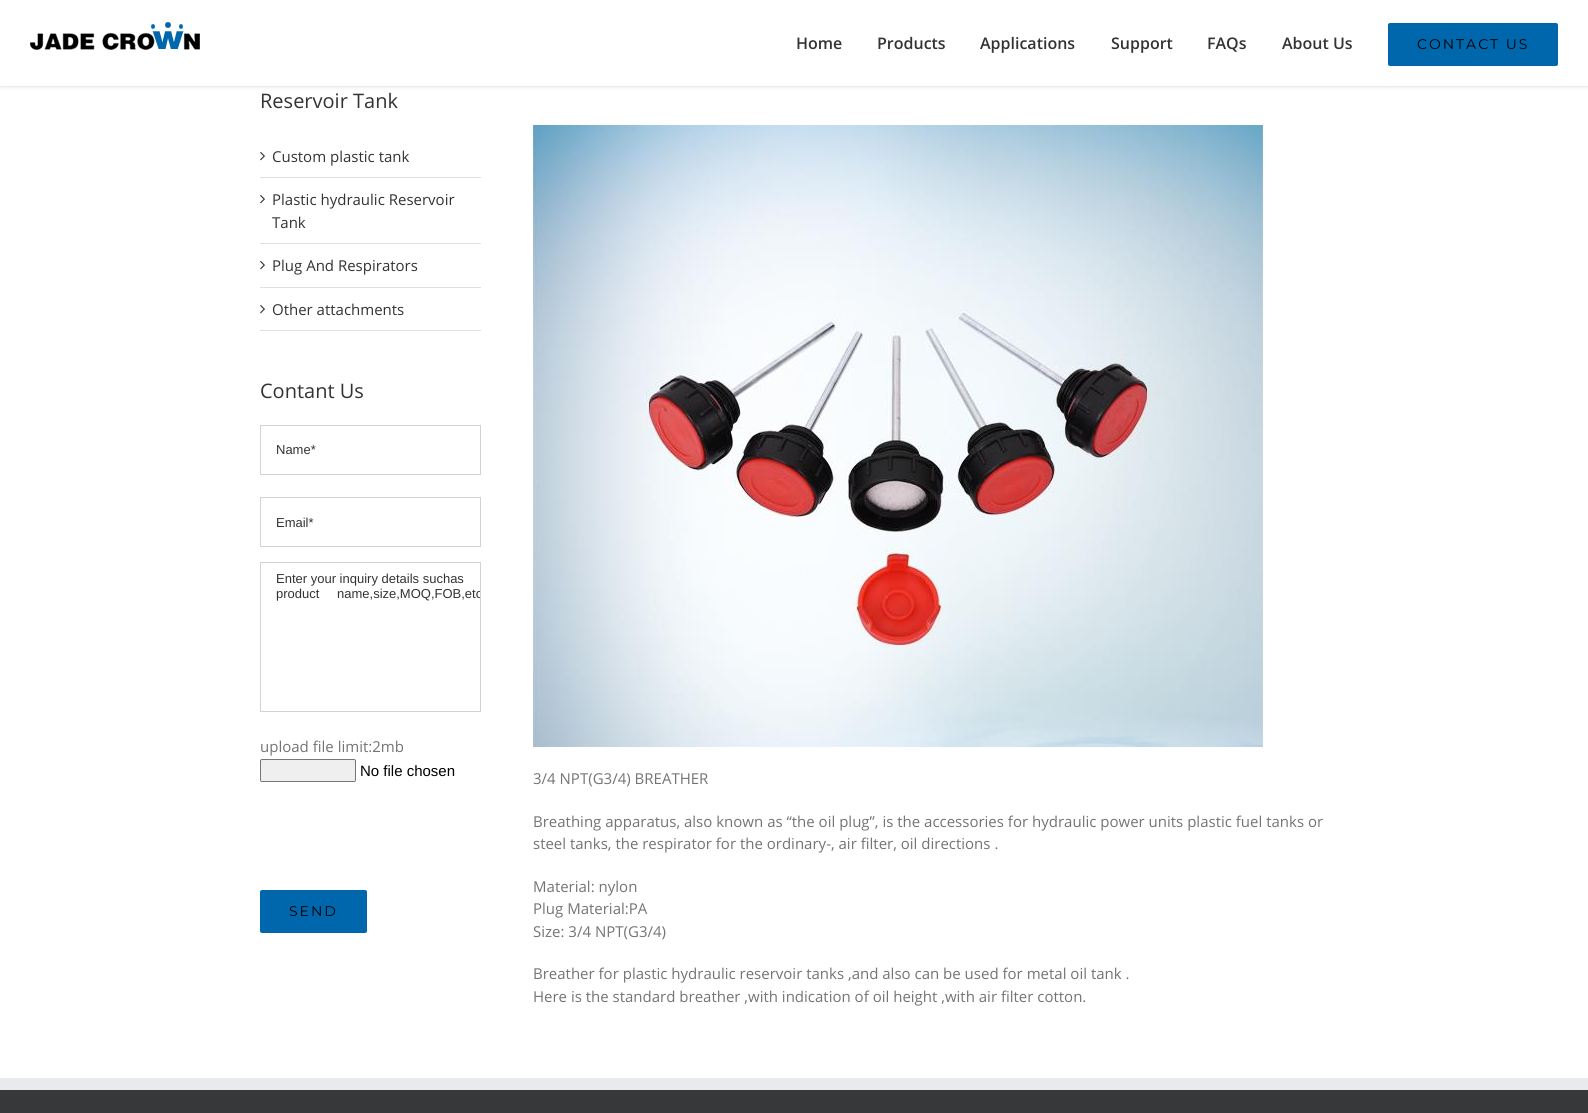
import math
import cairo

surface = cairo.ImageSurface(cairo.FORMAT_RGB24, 1588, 1113)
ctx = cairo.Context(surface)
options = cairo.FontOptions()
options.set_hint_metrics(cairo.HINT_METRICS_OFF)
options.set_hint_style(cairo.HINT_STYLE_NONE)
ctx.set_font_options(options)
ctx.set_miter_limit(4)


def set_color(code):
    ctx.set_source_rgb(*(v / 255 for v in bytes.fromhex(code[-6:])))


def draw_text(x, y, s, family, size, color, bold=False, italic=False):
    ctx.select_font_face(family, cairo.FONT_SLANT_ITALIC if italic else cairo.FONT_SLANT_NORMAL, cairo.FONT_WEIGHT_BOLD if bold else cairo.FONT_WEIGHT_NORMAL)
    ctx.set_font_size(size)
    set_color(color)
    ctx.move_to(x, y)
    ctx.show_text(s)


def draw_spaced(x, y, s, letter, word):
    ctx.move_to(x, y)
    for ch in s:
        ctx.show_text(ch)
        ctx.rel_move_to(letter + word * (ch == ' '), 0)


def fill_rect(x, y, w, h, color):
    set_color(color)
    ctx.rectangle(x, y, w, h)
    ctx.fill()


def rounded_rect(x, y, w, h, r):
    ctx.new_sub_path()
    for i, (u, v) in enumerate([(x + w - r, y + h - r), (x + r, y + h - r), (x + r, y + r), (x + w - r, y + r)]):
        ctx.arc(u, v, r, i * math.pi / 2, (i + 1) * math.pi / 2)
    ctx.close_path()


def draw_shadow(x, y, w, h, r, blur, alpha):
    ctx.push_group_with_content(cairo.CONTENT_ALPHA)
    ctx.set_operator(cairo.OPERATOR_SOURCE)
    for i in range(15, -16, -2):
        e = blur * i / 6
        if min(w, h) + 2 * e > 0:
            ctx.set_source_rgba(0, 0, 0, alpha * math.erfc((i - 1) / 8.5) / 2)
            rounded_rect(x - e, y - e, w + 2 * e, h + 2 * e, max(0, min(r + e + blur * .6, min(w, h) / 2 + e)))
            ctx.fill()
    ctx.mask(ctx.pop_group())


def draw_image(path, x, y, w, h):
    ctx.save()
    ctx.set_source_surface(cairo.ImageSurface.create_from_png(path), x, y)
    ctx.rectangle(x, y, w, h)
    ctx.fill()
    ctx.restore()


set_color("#ffffff")
ctx.paint()
set_color("#000000")
draw_shadow(0, 1, 1588, 86, 0, 1.5, 0.12)
fill_rect(0, 0, 1588, 86, "#ffffff")
draw_image("assets/img1.png", 30, 22, 170, 28)
draw_text(796, 49, "Home", "Open Sans SemiBold", 16, "#333333")
draw_text(877, 49, "Products", "Open Sans SemiBold", 16, "#333333")
draw_text(980, 49, "Applications", "Open Sans SemiBold", 16, "#333333")
draw_text(1111, 49, "Support", "Open Sans SemiBold", 16, "#333333")
draw_text(1207, 49, "FAQs", "Open Sans SemiBold", 16, "#333333")
draw_text(1282, 49, "About Us", "Open Sans SemiBold", 16, "#333333")
set_color("#0067ac")
rounded_rect(1388, 23, 170, 43, 2)
ctx.fill()
ctx.select_font_face("Montserrat Thin")
ctx.set_font_size(14)
set_color("#000000")
draw_spaced(1417, 49, "CONTACT US", 2, 0)
draw_text(260, 108, "Reservoir Tank", "Open Sans", 20, "#333333")
fill_rect(260, 177, 221, 1, "#e0dede")
draw_image("assets/img2.png", 260, 152, 5, 9)
draw_text(272, 162, "Custom plastic tank", "Open Sans", 15, "#333333")
fill_rect(260, 243, 221, 1, "#e0dede")
draw_image("assets/img2.png", 260, 195, 5, 9)
draw_text(272, 205, "Plastic hydraulic Reservoir", "Open Sans", 15, "#333333")
draw_text(272, 228, "Tank", "Open Sans", 15, "#333333")
fill_rect(260, 287, 221, 1, "#e0dede")
draw_image("assets/img2.png", 260, 261, 5, 9)
draw_text(272, 271, "Plug And Respirators", "Open Sans", 15, "#333333")
fill_rect(260, 330, 221, 1, "#e0dede")
draw_image("assets/img2.png", 260, 305, 5, 9)
draw_text(272, 315, "Other attachments", "Open Sans", 15, "#333333")
draw_text(260, 398, "Contant Us", "Open Sans", 20, "#333333")
ctx.rectangle(260.5, 425.5, 220, 49)
set_color("#d2d2d2")
ctx.set_line_width(1)
ctx.stroke()
draw_text(276, 454, "Name*", "Liberation Sans", 13, "#333333")
ctx.rectangle(260.5, 497.5, 220, 49)
set_color("#d2d2d2")
ctx.stroke()
draw_text(276, 527, "Email*", "Liberation Sans", 13, "#333333")
ctx.rectangle(260.5, 562.5, 220, 149)
set_color("#d2d2d2")
ctx.stroke()
draw_text(276, 583, "Enter your inquiry details suchas", "Liberation Sans", 13, "#333333")
draw_text(276, 598, "product", "Liberation Sans", 13, "#333333")
ctx.save()
ctx.rectangle(261, 563, 219, 148)
ctx.clip()
draw_text(337, 598, "name,size,MOQ,FOB,etc", "Liberation Sans", 13, "#333333")
ctx.restore()
draw_text(260, 752, "upload file limit:2mb", "Open Sans", 15, "#747474")
set_color("#efefef")
rounded_rect(260.5, 759.5, 95, 22, 1.5)
ctx.fill_preserve()
set_color("#767676")
ctx.stroke()
draw_text(360, 776, "No file chosen", "Liberation Sans", 15, "#000000")
set_color("#0067ac")
rounded_rect(260, 890, 107, 43, 2)
ctx.fill()
ctx.select_font_face("Montserrat Thin")
ctx.set_font_size(14)
set_color("#000000")
draw_spaced(289, 916, "SEND", 2, 0)
draw_image("assets/img3.png", 533, 125, 730, 622)
draw_text(533, 784, "3/4 NPT(G3/4) BREATHER", "Open Sans", 15, "#747474")
draw_text(533, 827, "Breathing apparatus, also known as “the oil plug”, is the accessories for hydraulic power units plastic fuel tanks or", "Open Sans", 15, "#747474")
draw_text(533, 849, "steel tanks, the respirator for the ordinary-, air filter, oil directions .", "Open Sans", 15, "#747474")
draw_text(533, 892, "Material: nylon", "Open Sans", 15, "#747474")
draw_text(533, 914, "Plug Material:PA", "Open Sans", 15, "#747474")
draw_text(533, 937, "Size: 3/4 NPT(G3/4)", "Open Sans", 15, "#747474")
draw_text(533, 979, "Breather for plastic hydraulic reservoir tanks ,and also can be used for metal oil tank .", "Open Sans", 15, "#747474")
draw_text(533, 1002, "Here is the standard breather ,with indication of oil height ,with air filter cotton.", "Open Sans", 15, "#747474")
fill_rect(0, 1090, 1588, 23, "#363839")
fill_rect(0, 1078, 1588, 12, "#e9eaee")
surface.write_to_png("output.png")
